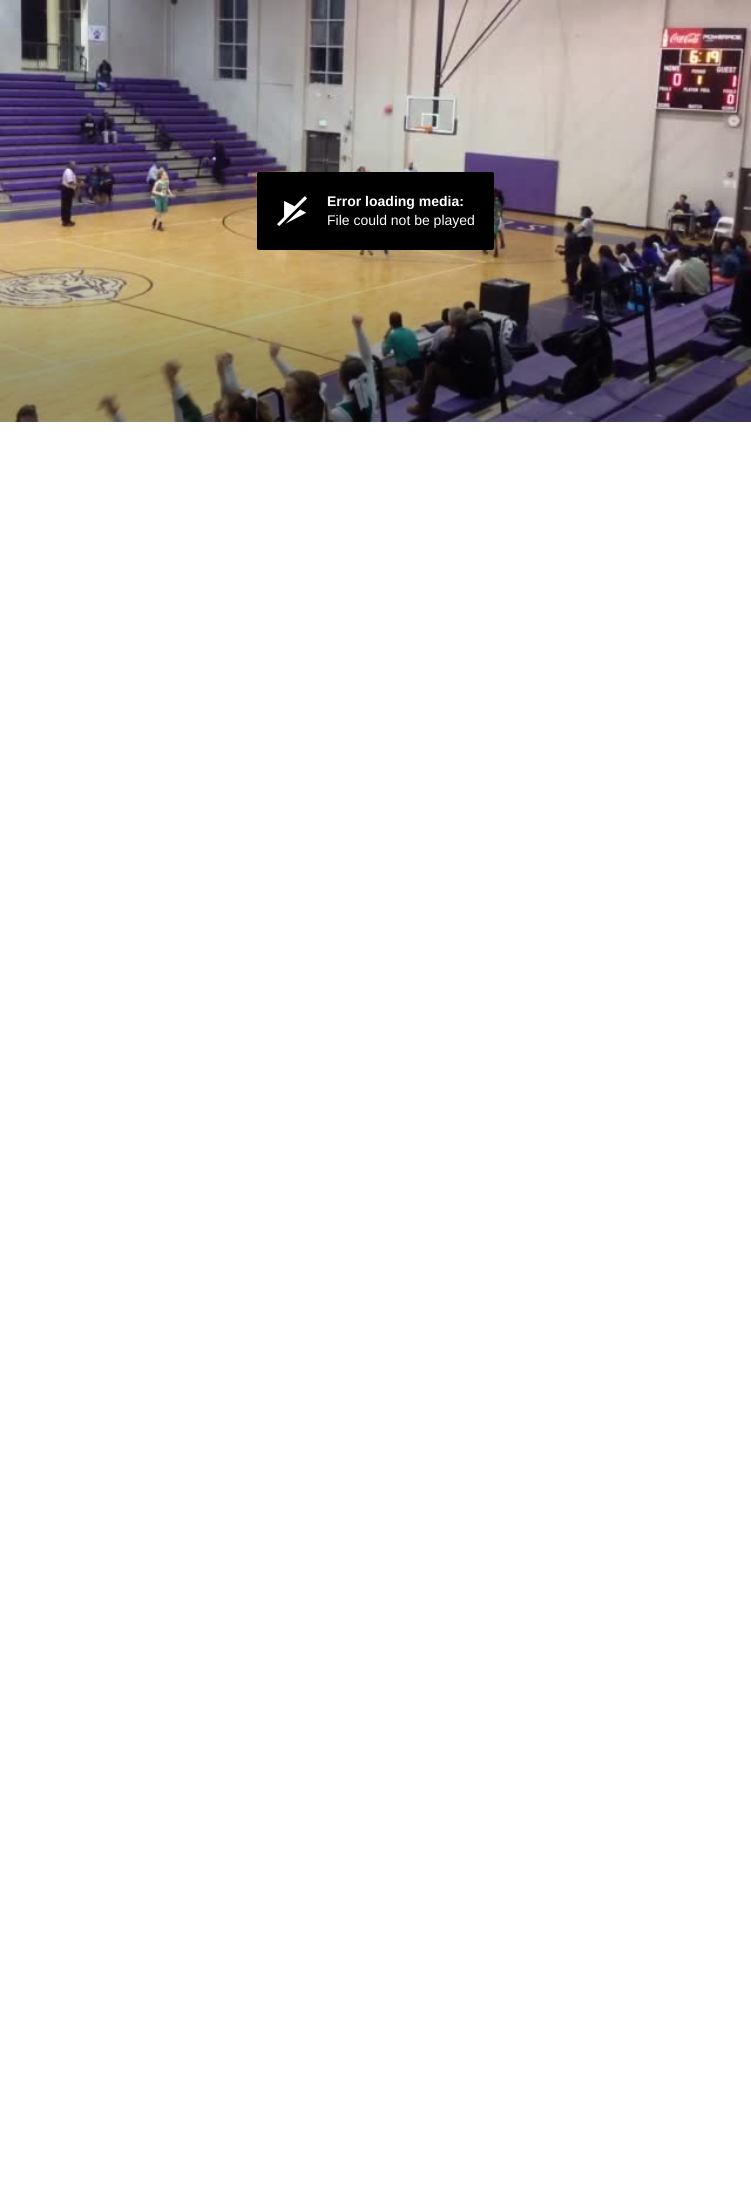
import math
import cairo

surface = cairo.ImageSurface(cairo.FORMAT_RGB24, 751, 2191)
ctx = cairo.Context(surface)
options = cairo.FontOptions()
options.set_hint_metrics(cairo.HINT_METRICS_OFF)
options.set_hint_style(cairo.HINT_STYLE_NONE)
ctx.set_font_options(options)
ctx.set_miter_limit(4)


def set_color(code):
    ctx.set_source_rgb(*(v / 255 for v in bytes.fromhex(code[-6:])))


def draw_text(x, y, s, family, size, color, bold=False, italic=False):
    ctx.select_font_face(family, cairo.FONT_SLANT_ITALIC if italic else cairo.FONT_SLANT_NORMAL, cairo.FONT_WEIGHT_BOLD if bold else cairo.FONT_WEIGHT_NORMAL)
    ctx.set_font_size(size)
    set_color(color)
    ctx.move_to(x, y)
    ctx.show_text(s)


def rounded_rect(x, y, w, h, r):
    ctx.new_sub_path()
    for i, (u, v) in enumerate([(x + w - r, y + h - r), (x + r, y + h - r), (x + r, y + r), (x + w - r, y + r)]):
        ctx.arc(u, v, r, i * math.pi / 2, (i + 1) * math.pi / 2)
    ctx.close_path()


def draw_image(path, x, y, w, h):
    ctx.save()
    ctx.set_source_surface(cairo.ImageSurface.create_from_png(path), x, y)
    ctx.rectangle(x, y, w, h)
    ctx.fill()
    ctx.restore()


set_color("#ffffff")
ctx.paint()
draw_image("assets/img1.png", 0, 0, 751, 422)
set_color("#000000")
rounded_rect(257, 172, 237, 78, 2)
ctx.fill()
draw_image("assets/img2.png", 277, 196, 30, 30)
draw_text(327, 206, "Error loading media:", "Liberation Sans", 14, "#ffffff", bold=True)
draw_text(327, 225, "File could not be played", "Liberation Sans", 14, "#ffffff")
surface.write_to_png("output.png")
